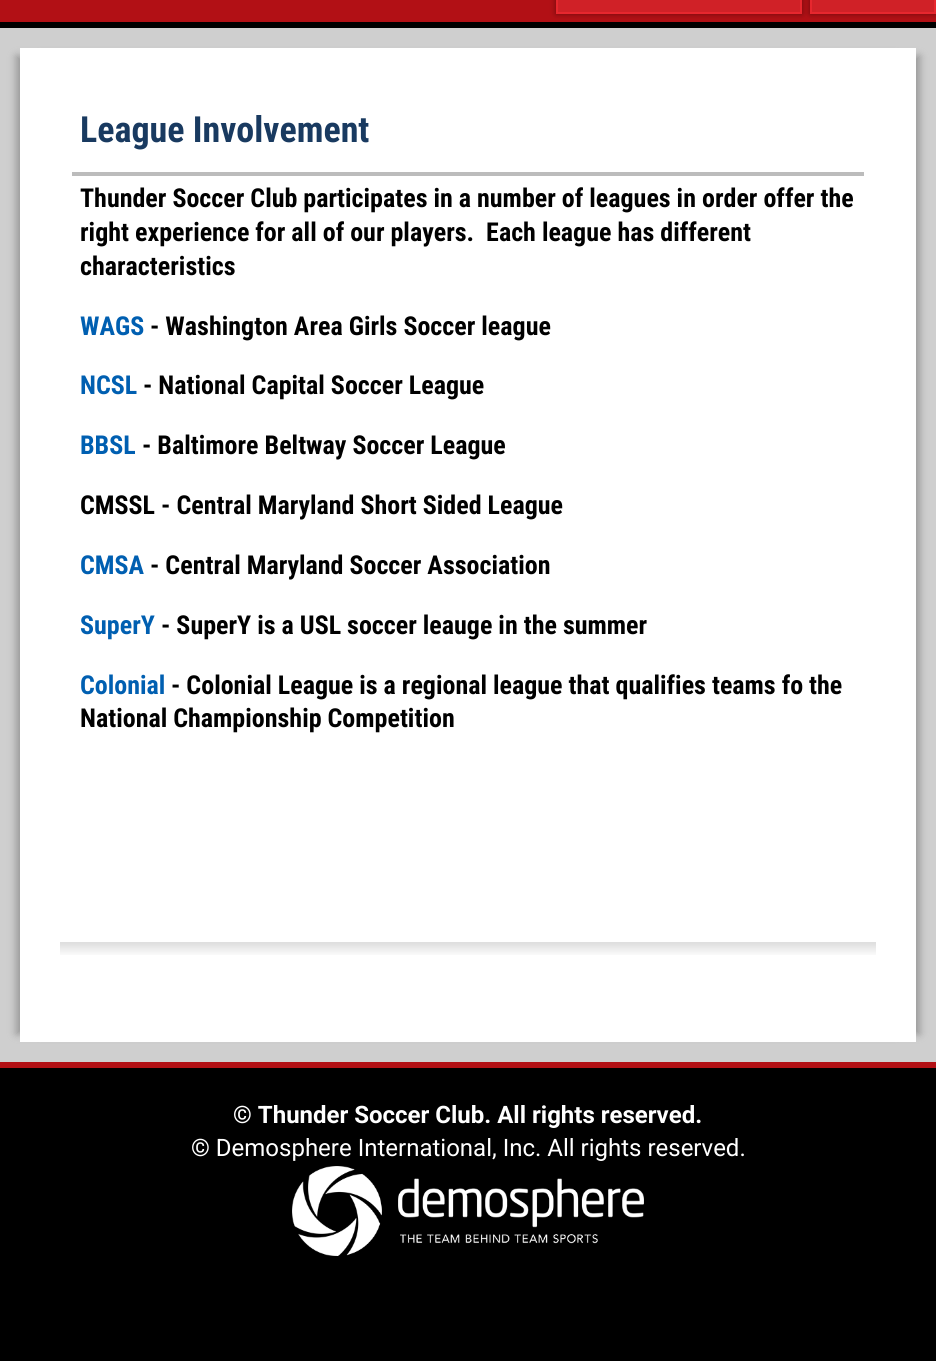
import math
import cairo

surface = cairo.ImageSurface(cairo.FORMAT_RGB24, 936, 1361)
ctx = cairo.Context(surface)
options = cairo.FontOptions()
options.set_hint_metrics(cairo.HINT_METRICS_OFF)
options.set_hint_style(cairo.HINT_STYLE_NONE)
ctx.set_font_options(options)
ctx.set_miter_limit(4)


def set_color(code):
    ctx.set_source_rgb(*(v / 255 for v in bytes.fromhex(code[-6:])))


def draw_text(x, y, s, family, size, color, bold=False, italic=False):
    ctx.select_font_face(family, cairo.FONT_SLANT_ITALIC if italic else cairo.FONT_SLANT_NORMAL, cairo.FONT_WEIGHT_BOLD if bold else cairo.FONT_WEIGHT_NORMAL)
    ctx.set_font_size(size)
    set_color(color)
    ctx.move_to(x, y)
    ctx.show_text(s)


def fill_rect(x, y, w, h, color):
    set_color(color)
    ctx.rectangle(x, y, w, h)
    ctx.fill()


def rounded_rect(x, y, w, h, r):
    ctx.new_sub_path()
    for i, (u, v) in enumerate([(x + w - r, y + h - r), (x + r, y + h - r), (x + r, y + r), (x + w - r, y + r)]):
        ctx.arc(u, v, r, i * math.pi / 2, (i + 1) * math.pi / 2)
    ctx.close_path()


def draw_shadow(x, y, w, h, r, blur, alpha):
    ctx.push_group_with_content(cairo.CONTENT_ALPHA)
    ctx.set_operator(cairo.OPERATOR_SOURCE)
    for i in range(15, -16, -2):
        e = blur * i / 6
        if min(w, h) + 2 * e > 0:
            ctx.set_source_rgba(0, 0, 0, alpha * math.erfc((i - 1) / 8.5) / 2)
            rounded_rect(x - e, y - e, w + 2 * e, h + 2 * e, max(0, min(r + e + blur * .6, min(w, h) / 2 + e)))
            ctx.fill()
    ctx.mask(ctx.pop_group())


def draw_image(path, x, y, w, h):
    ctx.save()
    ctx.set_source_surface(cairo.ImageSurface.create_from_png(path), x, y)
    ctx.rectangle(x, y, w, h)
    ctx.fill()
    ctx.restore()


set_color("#000000")
ctx.paint()
fill_rect(0, 0, 936, 22, "#b21015")
set_color("#000000")
draw_shadow(556, -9, 246, 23, 0, 3, 0.4)
set_color("#d02127")
ctx.rectangle(557, -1, 244, 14)
ctx.fill_preserve()
set_color("#e7272e")
ctx.stroke()
set_color("#000000")
draw_shadow(810, -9, 126, 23, 0, 3, 0.4)
set_color("#d02127")
ctx.rectangle(811, -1, 124, 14)
ctx.fill_preserve()
set_color("#e7272e")
ctx.stroke()
fill_rect(0, 28, 936, 1034, "#cfcfcf")
set_color("#999999")
draw_shadow(16, 56, 880, 978, 0, 4, 1)
draw_shadow(40, 56, 880, 978, 0, 4, 1)
fill_rect(20, 48, 896, 994, "#ffffff")
draw_text(80, 142, "League Involvement", "Roboto Condensed", 36, "#193a60", bold=True)
fill_rect(72, 172, 792, 4, "#bcbcbc")
draw_text(80, 207, "Thunder Soccer Club participates in a number of leagues in order offer the", "Roboto Condensed", 26, "#000000", bold=True)
draw_text(80, 241, "right experience for all of our players.  Each league has different", "Roboto Condensed", 26, "#000000", bold=True)
draw_text(80, 275, "characteristics", "Roboto Condensed", 26, "#000000", bold=True)
draw_text(80, 335, "WAGS", "Roboto Condensed", 26, "#005fb1", bold=True)
draw_text(150, 335, "- Washington Area Girls Soccer league", "Roboto Condensed", 26, "#000000", bold=True)
draw_text(80, 394, "NCSL", "Roboto Condensed", 26, "#005fb1", bold=True)
draw_text(143, 394, "- National Capital Soccer League", "Roboto Condensed", 26, "#000000", bold=True)
draw_text(80, 454, "BBSL", "Roboto Condensed", 26, "#005fb1", bold=True)
draw_text(142, 454, "- Baltimore Beltway Soccer League", "Roboto Condensed", 26, "#000000", bold=True)
draw_text(80, 514, "CMSSL - Central Maryland Short Sided League", "Roboto Condensed", 26, "#000000", bold=True)
draw_text(80, 574, "CMSA", "Roboto Condensed", 26, "#005fb1", bold=True)
draw_text(150, 574, "- Central Maryland Soccer Association", "Roboto Condensed", 26, "#000000", bold=True)
draw_text(80, 634, "SuperY", "Roboto Condensed", 26, "#005fb1", bold=True)
draw_text(161, 634, "- SuperY is a USL soccer leauge in the summer", "Roboto Condensed", 26, "#000000", bold=True)
draw_text(80, 694, "Colonial", "Roboto Condensed", 26, "#005fb1", bold=True)
draw_text(171, 694, "- Colonial League is a regional league that qualifies teams fo the", "Roboto Condensed", 26, "#000000", bold=True)
draw_text(80, 727, "National Championship Competition", "Roboto Condensed", 26, "#000000", bold=True)
draw_image("assets/img1.png", 60, 942, 816, 13)
fill_rect(0, 1062, 936, 6, "#b21015")
draw_text(233, 1123, "© Thunder Soccer Club. All rights reserved.", "Roboto", 24, "#ffffff", bold=True)
draw_text(191, 1156, "© Demosphere International, Inc. All rights reserved.", "Roboto", 24, "#ffffff")
draw_image("assets/img2.png", 292, 1166, 352, 90)
surface.write_to_png("output.png")
